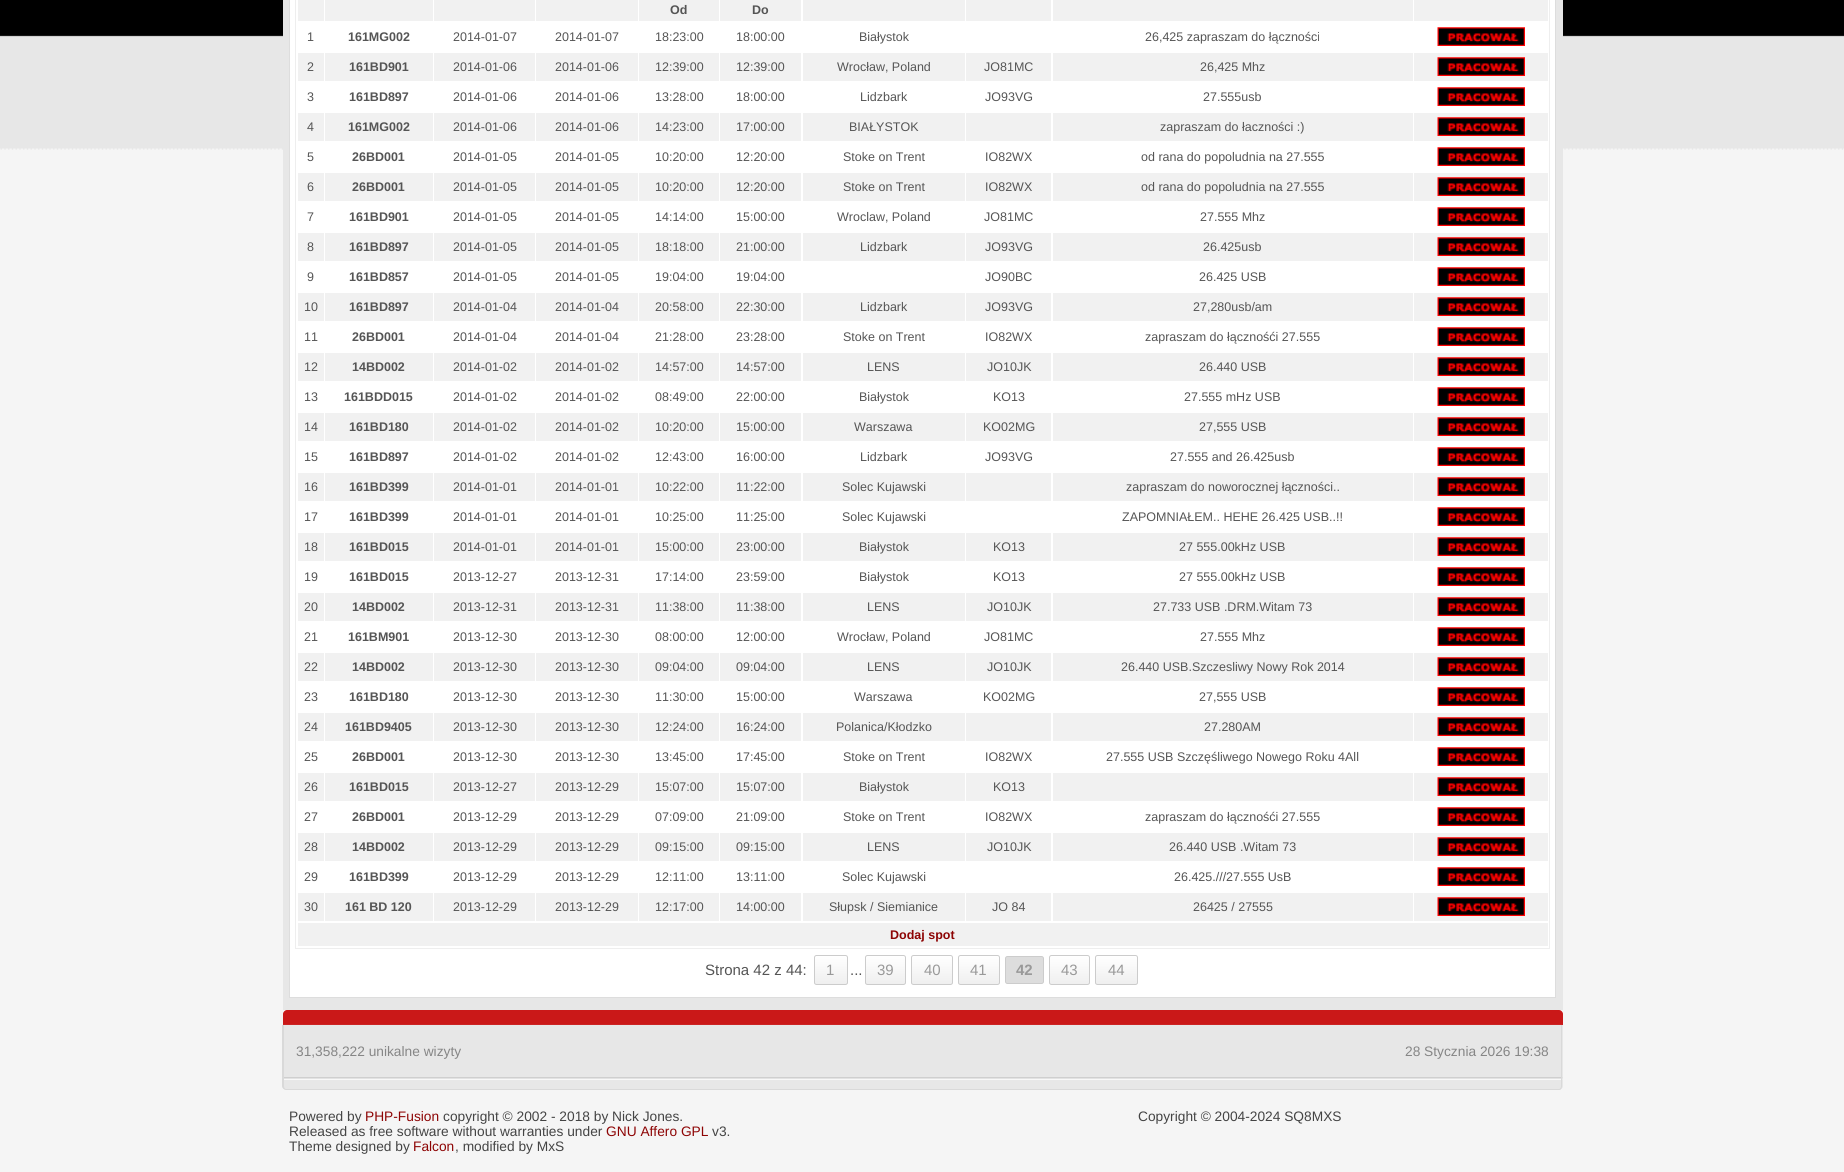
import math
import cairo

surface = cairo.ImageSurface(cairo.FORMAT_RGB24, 1844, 1172)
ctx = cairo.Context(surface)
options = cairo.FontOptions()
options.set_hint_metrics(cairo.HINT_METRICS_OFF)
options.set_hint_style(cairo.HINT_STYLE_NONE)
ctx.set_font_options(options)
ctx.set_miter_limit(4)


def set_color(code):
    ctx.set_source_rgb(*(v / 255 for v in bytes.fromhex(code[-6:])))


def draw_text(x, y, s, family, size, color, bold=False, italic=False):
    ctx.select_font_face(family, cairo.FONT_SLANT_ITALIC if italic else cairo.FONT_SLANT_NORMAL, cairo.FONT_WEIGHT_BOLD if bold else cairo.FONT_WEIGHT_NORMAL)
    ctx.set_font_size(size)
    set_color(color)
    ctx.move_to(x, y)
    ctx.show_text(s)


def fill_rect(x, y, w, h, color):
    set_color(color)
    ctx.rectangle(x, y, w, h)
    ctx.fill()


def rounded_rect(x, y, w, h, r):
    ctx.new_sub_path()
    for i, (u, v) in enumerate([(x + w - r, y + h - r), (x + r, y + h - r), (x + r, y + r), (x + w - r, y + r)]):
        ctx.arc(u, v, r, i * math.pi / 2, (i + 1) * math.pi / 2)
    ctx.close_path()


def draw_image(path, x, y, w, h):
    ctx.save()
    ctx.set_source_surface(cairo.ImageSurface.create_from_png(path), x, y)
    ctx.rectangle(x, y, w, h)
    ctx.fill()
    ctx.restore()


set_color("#f5f5f5")
ctx.paint()
draw_image("assets/img1.png", 0, 0, 1844, 150)
fill_rect(283, 0, 1280, 1010, "#e7e7e7")
set_color("#ffffff")
ctx.rectangle(289.5, -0.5, 1266, 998)
ctx.fill_preserve()
set_color("#dddddd")
ctx.set_line_width(1)
ctx.stroke()
ctx.rectangle(295.5, -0.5, 1254, 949)
set_color("#eeeeee")
ctx.stroke()
fill_rect(298, 0, 26, 21, "#f1f1f1")
fill_rect(325, 0, 108, 21, "#f1f1f1")
fill_rect(434, 0, 101, 21, "#f1f1f1")
fill_rect(536, 0, 102, 21, "#f1f1f1")
fill_rect(803, 0, 162, 21, "#f1f1f1")
fill_rect(966, 0, 85, 21, "#f1f1f1")
fill_rect(1053, 0, 360, 21, "#f1f1f1")
fill_rect(1414, 0, 134, 21, "#f1f1f1")
fill_rect(639, 0, 80, 21, "#f1f1f1")
draw_text(670, 14, "Od", "Liberation Sans", 12.5, "#555555", bold=True)
fill_rect(720, 0, 81, 21, "#f1f1f1")
draw_text(752, 14, "Do", "Liberation Sans", 12.5, "#555555", bold=True)
draw_text(307, 41, "1", "Liberation Sans", 12.5, "#555555")
draw_text(348, 41, "161MG002", "Liberation Sans", 12.5, "#555555", bold=True)
draw_text(453, 41, "2014-01-07", "Liberation Sans", 12.5, "#555555")
draw_text(555, 41, "2014-01-07", "Liberation Sans", 12.5, "#555555")
draw_text(655, 41, "18:23:00", "Liberation Sans", 12.5, "#555555")
draw_text(736, 41, "18:00:00", "Liberation Sans", 12.5, "#555555")
draw_text(859, 41, "Białystok", "Liberation Sans", 12.5, "#555555")
draw_text(1145, 41, "26,425 zapraszam do łączności", "Liberation Sans", 12.5, "#555555")
draw_image("assets/img2.png", 1437, 27, 88, 19)
fill_rect(298, 53, 26, 28, "#f1f1f1")
draw_text(307, 71, "2", "Liberation Sans", 12.5, "#555555")
fill_rect(325, 53, 108, 28, "#f1f1f1")
draw_text(349, 71, "161BD901", "Liberation Sans", 12.5, "#555555", bold=True)
fill_rect(434, 53, 101, 28, "#f1f1f1")
draw_text(453, 71, "2014-01-06", "Liberation Sans", 12.5, "#555555")
fill_rect(536, 53, 102, 28, "#f1f1f1")
draw_text(555, 71, "2014-01-06", "Liberation Sans", 12.5, "#555555")
fill_rect(639, 53, 80, 28, "#f1f1f1")
draw_text(655, 71, "12:39:00", "Liberation Sans", 12.5, "#555555")
fill_rect(720, 53, 81, 28, "#f1f1f1")
draw_text(736, 71, "12:39:00", "Liberation Sans", 12.5, "#555555")
fill_rect(803, 53, 162, 28, "#f1f1f1")
draw_text(837, 71, "Wrocław, Poland", "Liberation Sans", 12.5, "#555555")
fill_rect(966, 53, 85, 28, "#f1f1f1")
draw_text(984, 71, "JO81MC", "Liberation Sans", 12.5, "#555555")
fill_rect(1053, 53, 360, 28, "#f1f1f1")
draw_text(1200, 71, "26,425 Mhz", "Liberation Sans", 12.5, "#555555")
fill_rect(1414, 53, 134, 28, "#f1f1f1")
draw_image("assets/img3.png", 1437, 57, 88, 19)
draw_text(307, 101, "3", "Liberation Sans", 12.5, "#555555")
draw_text(349, 101, "161BD897", "Liberation Sans", 12.5, "#555555", bold=True)
draw_text(453, 101, "2014-01-06", "Liberation Sans", 12.5, "#555555")
draw_text(555, 101, "2014-01-06", "Liberation Sans", 12.5, "#555555")
draw_text(655, 101, "13:28:00", "Liberation Sans", 12.5, "#555555")
draw_text(736, 101, "18:00:00", "Liberation Sans", 12.5, "#555555")
draw_text(860, 101, "Lidzbark", "Liberation Sans", 12.5, "#555555")
draw_text(985, 101, "JO93VG", "Liberation Sans", 12.5, "#555555")
draw_text(1203, 101, "27.555usb", "Liberation Sans", 12.5, "#555555")
draw_image("assets/img2.png", 1437, 87, 88, 19)
fill_rect(298, 113, 26, 28, "#f1f1f1")
draw_text(307, 131, "4", "Liberation Sans", 12.5, "#555555")
fill_rect(325, 113, 108, 28, "#f1f1f1")
draw_text(348, 131, "161MG002", "Liberation Sans", 12.5, "#555555", bold=True)
fill_rect(434, 113, 101, 28, "#f1f1f1")
draw_text(453, 131, "2014-01-06", "Liberation Sans", 12.5, "#555555")
fill_rect(536, 113, 102, 28, "#f1f1f1")
draw_text(555, 131, "2014-01-06", "Liberation Sans", 12.5, "#555555")
fill_rect(639, 113, 80, 28, "#f1f1f1")
draw_text(655, 131, "14:23:00", "Liberation Sans", 12.5, "#555555")
fill_rect(720, 113, 81, 28, "#f1f1f1")
draw_text(736, 131, "17:00:00", "Liberation Sans", 12.5, "#555555")
fill_rect(803, 113, 162, 28, "#f1f1f1")
draw_text(849, 131, "BIAŁYSTOK", "Liberation Sans", 12.5, "#555555")
fill_rect(966, 113, 85, 28, "#f1f1f1")
fill_rect(1053, 113, 360, 28, "#f1f1f1")
draw_text(1160, 131, "zapraszam do łaczności :)", "Liberation Sans", 12.5, "#555555")
fill_rect(1414, 113, 134, 28, "#f1f1f1")
draw_image("assets/img3.png", 1437, 117, 88, 19)
draw_text(307, 161, "5", "Liberation Sans", 12.5, "#555555")
draw_text(352, 161, "26BD001", "Liberation Sans", 12.5, "#555555", bold=True)
draw_text(453, 161, "2014-01-05", "Liberation Sans", 12.5, "#555555")
draw_text(555, 161, "2014-01-05", "Liberation Sans", 12.5, "#555555")
draw_text(655, 161, "10:20:00", "Liberation Sans", 12.5, "#555555")
draw_text(736, 161, "12:20:00", "Liberation Sans", 12.5, "#555555")
draw_text(843, 161, "Stoke on Trent", "Liberation Sans", 12.5, "#555555")
draw_text(985, 161, "IO82WX", "Liberation Sans", 12.5, "#555555")
draw_text(1141, 161, "od rana do popoludnia na 27.555", "Liberation Sans", 12.5, "#555555")
draw_image("assets/img2.png", 1437, 147, 88, 19)
fill_rect(298, 173, 26, 28, "#f1f1f1")
draw_text(307, 191, "6", "Liberation Sans", 12.5, "#555555")
fill_rect(325, 173, 108, 28, "#f1f1f1")
draw_text(352, 191, "26BD001", "Liberation Sans", 12.5, "#555555", bold=True)
fill_rect(434, 173, 101, 28, "#f1f1f1")
draw_text(453, 191, "2014-01-05", "Liberation Sans", 12.5, "#555555")
fill_rect(536, 173, 102, 28, "#f1f1f1")
draw_text(555, 191, "2014-01-05", "Liberation Sans", 12.5, "#555555")
fill_rect(639, 173, 80, 28, "#f1f1f1")
draw_text(655, 191, "10:20:00", "Liberation Sans", 12.5, "#555555")
fill_rect(720, 173, 81, 28, "#f1f1f1")
draw_text(736, 191, "12:20:00", "Liberation Sans", 12.5, "#555555")
fill_rect(803, 173, 162, 28, "#f1f1f1")
draw_text(843, 191, "Stoke on Trent", "Liberation Sans", 12.5, "#555555")
fill_rect(966, 173, 85, 28, "#f1f1f1")
draw_text(985, 191, "IO82WX", "Liberation Sans", 12.5, "#555555")
fill_rect(1053, 173, 360, 28, "#f1f1f1")
draw_text(1141, 191, "od rana do popoludnia na 27.555", "Liberation Sans", 12.5, "#555555")
fill_rect(1414, 173, 134, 28, "#f1f1f1")
draw_image("assets/img3.png", 1437, 177, 88, 19)
draw_text(307, 221, "7", "Liberation Sans", 12.5, "#555555")
draw_text(349, 221, "161BD901", "Liberation Sans", 12.5, "#555555", bold=True)
draw_text(453, 221, "2014-01-05", "Liberation Sans", 12.5, "#555555")
draw_text(555, 221, "2014-01-05", "Liberation Sans", 12.5, "#555555")
draw_text(655, 221, "14:14:00", "Liberation Sans", 12.5, "#555555")
draw_text(736, 221, "15:00:00", "Liberation Sans", 12.5, "#555555")
draw_text(837, 221, "Wroclaw, Poland", "Liberation Sans", 12.5, "#555555")
draw_text(984, 221, "JO81MC", "Liberation Sans", 12.5, "#555555")
draw_text(1200, 221, "27.555 Mhz", "Liberation Sans", 12.5, "#555555")
draw_image("assets/img2.png", 1437, 207, 88, 19)
fill_rect(298, 233, 26, 28, "#f1f1f1")
draw_text(307, 251, "8", "Liberation Sans", 12.5, "#555555")
fill_rect(325, 233, 108, 28, "#f1f1f1")
draw_text(349, 251, "161BD897", "Liberation Sans", 12.5, "#555555", bold=True)
fill_rect(434, 233, 101, 28, "#f1f1f1")
draw_text(453, 251, "2014-01-05", "Liberation Sans", 12.5, "#555555")
fill_rect(536, 233, 102, 28, "#f1f1f1")
draw_text(555, 251, "2014-01-05", "Liberation Sans", 12.5, "#555555")
fill_rect(639, 233, 80, 28, "#f1f1f1")
draw_text(655, 251, "18:18:00", "Liberation Sans", 12.5, "#555555")
fill_rect(720, 233, 81, 28, "#f1f1f1")
draw_text(736, 251, "21:00:00", "Liberation Sans", 12.5, "#555555")
fill_rect(803, 233, 162, 28, "#f1f1f1")
draw_text(860, 251, "Lidzbark", "Liberation Sans", 12.5, "#555555")
fill_rect(966, 233, 85, 28, "#f1f1f1")
draw_text(985, 251, "JO93VG", "Liberation Sans", 12.5, "#555555")
fill_rect(1053, 233, 360, 28, "#f1f1f1")
draw_text(1203, 251, "26.425usb", "Liberation Sans", 12.5, "#555555")
fill_rect(1414, 233, 134, 28, "#f1f1f1")
draw_image("assets/img3.png", 1437, 237, 88, 19)
draw_text(307, 281, "9", "Liberation Sans", 12.5, "#555555")
draw_text(349, 281, "161BD857", "Liberation Sans", 12.5, "#555555", bold=True)
draw_text(453, 281, "2014-01-05", "Liberation Sans", 12.5, "#555555")
draw_text(555, 281, "2014-01-05", "Liberation Sans", 12.5, "#555555")
draw_text(655, 281, "19:04:00", "Liberation Sans", 12.5, "#555555")
draw_text(736, 281, "19:04:00", "Liberation Sans", 12.5, "#555555")
draw_text(985, 281, "JO90BC", "Liberation Sans", 12.5, "#555555")
draw_text(1199, 281, "26.425 USB", "Liberation Sans", 12.5, "#555555")
draw_image("assets/img4.png", 1437, 267, 88, 19)
fill_rect(298, 293, 26, 28, "#f1f1f1")
draw_text(304, 311, "10", "Liberation Sans", 12.5, "#555555")
fill_rect(325, 293, 108, 28, "#f1f1f1")
draw_text(349, 311, "161BD897", "Liberation Sans", 12.5, "#555555", bold=True)
fill_rect(434, 293, 101, 28, "#f1f1f1")
draw_text(453, 311, "2014-01-04", "Liberation Sans", 12.5, "#555555")
fill_rect(536, 293, 102, 28, "#f1f1f1")
draw_text(555, 311, "2014-01-04", "Liberation Sans", 12.5, "#555555")
fill_rect(639, 293, 80, 28, "#f1f1f1")
draw_text(655, 311, "20:58:00", "Liberation Sans", 12.5, "#555555")
fill_rect(720, 293, 81, 28, "#f1f1f1")
draw_text(736, 311, "22:30:00", "Liberation Sans", 12.5, "#555555")
fill_rect(803, 293, 162, 28, "#f1f1f1")
draw_text(860, 311, "Lidzbark", "Liberation Sans", 12.5, "#555555")
fill_rect(966, 293, 85, 28, "#f1f1f1")
draw_text(985, 311, "JO93VG", "Liberation Sans", 12.5, "#555555")
fill_rect(1053, 293, 360, 28, "#f1f1f1")
draw_text(1193, 311, "27,280usb/am", "Liberation Sans", 12.5, "#555555")
fill_rect(1414, 293, 134, 28, "#f1f1f1")
draw_image("assets/img3.png", 1437, 297, 88, 19)
draw_text(304, 341, "11", "Liberation Sans", 12.5, "#555555")
draw_text(352, 341, "26BD001", "Liberation Sans", 12.5, "#555555", bold=True)
draw_text(453, 341, "2014-01-04", "Liberation Sans", 12.5, "#555555")
draw_text(555, 341, "2014-01-04", "Liberation Sans", 12.5, "#555555")
draw_text(655, 341, "21:28:00", "Liberation Sans", 12.5, "#555555")
draw_text(736, 341, "23:28:00", "Liberation Sans", 12.5, "#555555")
draw_text(843, 341, "Stoke on Trent", "Liberation Sans", 12.5, "#555555")
draw_text(985, 341, "IO82WX", "Liberation Sans", 12.5, "#555555")
draw_text(1145, 341, "zapraszam do łącznośći 27.555", "Liberation Sans", 12.5, "#555555")
draw_image("assets/img2.png", 1437, 327, 88, 19)
fill_rect(298, 353, 26, 28, "#f1f1f1")
draw_text(304, 371, "12", "Liberation Sans", 12.5, "#555555")
fill_rect(325, 353, 108, 28, "#f1f1f1")
draw_text(352, 371, "14BD002", "Liberation Sans", 12.5, "#555555", bold=True)
fill_rect(434, 353, 101, 28, "#f1f1f1")
draw_text(453, 371, "2014-01-02", "Liberation Sans", 12.5, "#555555")
fill_rect(536, 353, 102, 28, "#f1f1f1")
draw_text(555, 371, "2014-01-02", "Liberation Sans", 12.5, "#555555")
fill_rect(639, 353, 80, 28, "#f1f1f1")
draw_text(655, 371, "14:57:00", "Liberation Sans", 12.5, "#555555")
fill_rect(720, 353, 81, 28, "#f1f1f1")
draw_text(736, 371, "14:57:00", "Liberation Sans", 12.5, "#555555")
fill_rect(803, 353, 162, 28, "#f1f1f1")
draw_text(867, 371, "LENS", "Liberation Sans", 12.5, "#555555")
fill_rect(966, 353, 85, 28, "#f1f1f1")
draw_text(987, 371, "JO10JK", "Liberation Sans", 12.5, "#555555")
fill_rect(1053, 353, 360, 28, "#f1f1f1")
draw_text(1199, 371, "26.440 USB", "Liberation Sans", 12.5, "#555555")
fill_rect(1414, 353, 134, 28, "#f1f1f1")
draw_image("assets/img3.png", 1437, 357, 88, 19)
draw_text(304, 401, "13", "Liberation Sans", 12.5, "#555555")
draw_text(344, 401, "161BDD015", "Liberation Sans", 12.5, "#555555", bold=True)
draw_text(453, 401, "2014-01-02", "Liberation Sans", 12.5, "#555555")
draw_text(555, 401, "2014-01-02", "Liberation Sans", 12.5, "#555555")
draw_text(655, 401, "08:49:00", "Liberation Sans", 12.5, "#555555")
draw_text(736, 401, "22:00:00", "Liberation Sans", 12.5, "#555555")
draw_text(859, 401, "Białystok", "Liberation Sans", 12.5, "#555555")
draw_text(993, 401, "KO13", "Liberation Sans", 12.5, "#555555")
draw_text(1184, 401, "27.555 mHz USB", "Liberation Sans", 12.5, "#555555")
draw_image("assets/img2.png", 1437, 387, 88, 19)
fill_rect(298, 413, 26, 28, "#f1f1f1")
draw_text(304, 431, "14", "Liberation Sans", 12.5, "#555555")
fill_rect(325, 413, 108, 28, "#f1f1f1")
draw_text(349, 431, "161BD180", "Liberation Sans", 12.5, "#555555", bold=True)
fill_rect(434, 413, 101, 28, "#f1f1f1")
draw_text(453, 431, "2014-01-02", "Liberation Sans", 12.5, "#555555")
fill_rect(536, 413, 102, 28, "#f1f1f1")
draw_text(555, 431, "2014-01-02", "Liberation Sans", 12.5, "#555555")
fill_rect(639, 413, 80, 28, "#f1f1f1")
draw_text(655, 431, "10:20:00", "Liberation Sans", 12.5, "#555555")
fill_rect(720, 413, 81, 28, "#f1f1f1")
draw_text(736, 431, "15:00:00", "Liberation Sans", 12.5, "#555555")
fill_rect(803, 413, 162, 28, "#f1f1f1")
draw_text(854, 431, "Warszawa", "Liberation Sans", 12.5, "#555555")
fill_rect(966, 413, 85, 28, "#f1f1f1")
draw_text(983, 431, "KO02MG", "Liberation Sans", 12.5, "#555555")
fill_rect(1053, 413, 360, 28, "#f1f1f1")
draw_text(1199, 431, "27,555 USB", "Liberation Sans", 12.5, "#555555")
fill_rect(1414, 413, 134, 28, "#f1f1f1")
draw_image("assets/img3.png", 1437, 417, 88, 19)
draw_text(304, 461, "15", "Liberation Sans", 12.5, "#555555")
draw_text(349, 461, "161BD897", "Liberation Sans", 12.5, "#555555", bold=True)
draw_text(453, 461, "2014-01-02", "Liberation Sans", 12.5, "#555555")
draw_text(555, 461, "2014-01-02", "Liberation Sans", 12.5, "#555555")
draw_text(655, 461, "12:43:00", "Liberation Sans", 12.5, "#555555")
draw_text(736, 461, "16:00:00", "Liberation Sans", 12.5, "#555555")
draw_text(860, 461, "Lidzbark", "Liberation Sans", 12.5, "#555555")
draw_text(985, 461, "JO93VG", "Liberation Sans", 12.5, "#555555")
draw_text(1170, 461, "27.555 and 26.425usb", "Liberation Sans", 12.5, "#555555")
draw_image("assets/img2.png", 1437, 447, 88, 19)
fill_rect(298, 473, 26, 28, "#f1f1f1")
draw_text(304, 491, "16", "Liberation Sans", 12.5, "#555555")
fill_rect(325, 473, 108, 28, "#f1f1f1")
draw_text(349, 491, "161BD399", "Liberation Sans", 12.5, "#555555", bold=True)
fill_rect(434, 473, 101, 28, "#f1f1f1")
draw_text(453, 491, "2014-01-01", "Liberation Sans", 12.5, "#555555")
fill_rect(536, 473, 102, 28, "#f1f1f1")
draw_text(555, 491, "2014-01-01", "Liberation Sans", 12.5, "#555555")
fill_rect(639, 473, 80, 28, "#f1f1f1")
draw_text(655, 491, "10:22:00", "Liberation Sans", 12.5, "#555555")
fill_rect(720, 473, 81, 28, "#f1f1f1")
draw_text(736, 491, "11:22:00", "Liberation Sans", 12.5, "#555555")
fill_rect(803, 473, 162, 28, "#f1f1f1")
draw_text(842, 491, "Solec Kujawski", "Liberation Sans", 12.5, "#555555")
fill_rect(966, 473, 85, 28, "#f1f1f1")
fill_rect(1053, 473, 360, 28, "#f1f1f1")
draw_text(1126, 491, "zapraszam do noworocznej łączności..", "Liberation Sans", 12.5, "#555555")
fill_rect(1414, 473, 134, 28, "#f1f1f1")
draw_image("assets/img3.png", 1437, 477, 88, 19)
draw_text(304, 521, "17", "Liberation Sans", 12.5, "#555555")
draw_text(349, 521, "161BD399", "Liberation Sans", 12.5, "#555555", bold=True)
draw_text(453, 521, "2014-01-01", "Liberation Sans", 12.5, "#555555")
draw_text(555, 521, "2014-01-01", "Liberation Sans", 12.5, "#555555")
draw_text(655, 521, "10:25:00", "Liberation Sans", 12.5, "#555555")
draw_text(736, 521, "11:25:00", "Liberation Sans", 12.5, "#555555")
draw_text(842, 521, "Solec Kujawski", "Liberation Sans", 12.5, "#555555")
draw_text(1122, 521, "ZAPOMNIAŁEM.. HEHE 26.425 USB..!!", "Liberation Sans", 12.5, "#555555")
draw_image("assets/img2.png", 1437, 507, 88, 19)
fill_rect(298, 533, 26, 28, "#f1f1f1")
draw_text(304, 551, "18", "Liberation Sans", 12.5, "#555555")
fill_rect(325, 533, 108, 28, "#f1f1f1")
draw_text(349, 551, "161BD015", "Liberation Sans", 12.5, "#555555", bold=True)
fill_rect(434, 533, 101, 28, "#f1f1f1")
draw_text(453, 551, "2014-01-01", "Liberation Sans", 12.5, "#555555")
fill_rect(536, 533, 102, 28, "#f1f1f1")
draw_text(555, 551, "2014-01-01", "Liberation Sans", 12.5, "#555555")
fill_rect(639, 533, 80, 28, "#f1f1f1")
draw_text(655, 551, "15:00:00", "Liberation Sans", 12.5, "#555555")
fill_rect(720, 533, 81, 28, "#f1f1f1")
draw_text(736, 551, "23:00:00", "Liberation Sans", 12.5, "#555555")
fill_rect(803, 533, 162, 28, "#f1f1f1")
draw_text(859, 551, "Białystok", "Liberation Sans", 12.5, "#555555")
fill_rect(966, 533, 85, 28, "#f1f1f1")
draw_text(993, 551, "KO13", "Liberation Sans", 12.5, "#555555")
fill_rect(1053, 533, 360, 28, "#f1f1f1")
draw_text(1179, 551, "27 555.00kHz USB", "Liberation Sans", 12.5, "#555555")
fill_rect(1414, 533, 134, 28, "#f1f1f1")
draw_image("assets/img3.png", 1437, 537, 88, 19)
draw_text(304, 581, "19", "Liberation Sans", 12.5, "#555555")
draw_text(349, 581, "161BD015", "Liberation Sans", 12.5, "#555555", bold=True)
draw_text(453, 581, "2013-12-27", "Liberation Sans", 12.5, "#555555")
draw_text(555, 581, "2013-12-31", "Liberation Sans", 12.5, "#555555")
draw_text(655, 581, "17:14:00", "Liberation Sans", 12.5, "#555555")
draw_text(736, 581, "23:59:00", "Liberation Sans", 12.5, "#555555")
draw_text(859, 581, "Białystok", "Liberation Sans", 12.5, "#555555")
draw_text(993, 581, "KO13", "Liberation Sans", 12.5, "#555555")
draw_text(1179, 581, "27 555.00kHz USB", "Liberation Sans", 12.5, "#555555")
draw_image("assets/img2.png", 1437, 567, 88, 19)
fill_rect(298, 593, 26, 28, "#f1f1f1")
draw_text(304, 611, "20", "Liberation Sans", 12.5, "#555555")
fill_rect(325, 593, 108, 28, "#f1f1f1")
draw_text(352, 611, "14BD002", "Liberation Sans", 12.5, "#555555", bold=True)
fill_rect(434, 593, 101, 28, "#f1f1f1")
draw_text(453, 611, "2013-12-31", "Liberation Sans", 12.5, "#555555")
fill_rect(536, 593, 102, 28, "#f1f1f1")
draw_text(555, 611, "2013-12-31", "Liberation Sans", 12.5, "#555555")
fill_rect(639, 593, 80, 28, "#f1f1f1")
draw_text(655, 611, "11:38:00", "Liberation Sans", 12.5, "#555555")
fill_rect(720, 593, 81, 28, "#f1f1f1")
draw_text(736, 611, "11:38:00", "Liberation Sans", 12.5, "#555555")
fill_rect(803, 593, 162, 28, "#f1f1f1")
draw_text(867, 611, "LENS", "Liberation Sans", 12.5, "#555555")
fill_rect(966, 593, 85, 28, "#f1f1f1")
draw_text(987, 611, "JO10JK", "Liberation Sans", 12.5, "#555555")
fill_rect(1053, 593, 360, 28, "#f1f1f1")
draw_text(1153, 611, "27.733 USB .DRM.Witam 73", "Liberation Sans", 12.5, "#555555")
fill_rect(1414, 593, 134, 28, "#f1f1f1")
draw_image("assets/img3.png", 1437, 597, 88, 19)
draw_text(304, 641, "21", "Liberation Sans", 12.5, "#555555")
draw_text(348, 641, "161BM901", "Liberation Sans", 12.5, "#555555", bold=True)
draw_text(453, 641, "2013-12-30", "Liberation Sans", 12.5, "#555555")
draw_text(555, 641, "2013-12-30", "Liberation Sans", 12.5, "#555555")
draw_text(655, 641, "08:00:00", "Liberation Sans", 12.5, "#555555")
draw_text(736, 641, "12:00:00", "Liberation Sans", 12.5, "#555555")
draw_text(837, 641, "Wrocław, Poland", "Liberation Sans", 12.5, "#555555")
draw_text(984, 641, "JO81MC", "Liberation Sans", 12.5, "#555555")
draw_text(1200, 641, "27.555 Mhz", "Liberation Sans", 12.5, "#555555")
draw_image("assets/img2.png", 1437, 627, 88, 19)
fill_rect(298, 653, 26, 28, "#f1f1f1")
draw_text(304, 671, "22", "Liberation Sans", 12.5, "#555555")
fill_rect(325, 653, 108, 28, "#f1f1f1")
draw_text(352, 671, "14BD002", "Liberation Sans", 12.5, "#555555", bold=True)
fill_rect(434, 653, 101, 28, "#f1f1f1")
draw_text(453, 671, "2013-12-30", "Liberation Sans", 12.5, "#555555")
fill_rect(536, 653, 102, 28, "#f1f1f1")
draw_text(555, 671, "2013-12-30", "Liberation Sans", 12.5, "#555555")
fill_rect(639, 653, 80, 28, "#f1f1f1")
draw_text(655, 671, "09:04:00", "Liberation Sans", 12.5, "#555555")
fill_rect(720, 653, 81, 28, "#f1f1f1")
draw_text(736, 671, "09:04:00", "Liberation Sans", 12.5, "#555555")
fill_rect(803, 653, 162, 28, "#f1f1f1")
draw_text(867, 671, "LENS", "Liberation Sans", 12.5, "#555555")
fill_rect(966, 653, 85, 28, "#f1f1f1")
draw_text(987, 671, "JO10JK", "Liberation Sans", 12.5, "#555555")
fill_rect(1053, 653, 360, 28, "#f1f1f1")
draw_text(1121, 671, "26.440 USB.Szczesliwy Nowy Rok 2014", "Liberation Sans", 12.5, "#555555")
fill_rect(1414, 653, 134, 28, "#f1f1f1")
draw_image("assets/img3.png", 1437, 657, 88, 19)
draw_text(304, 701, "23", "Liberation Sans", 12.5, "#555555")
draw_text(349, 701, "161BD180", "Liberation Sans", 12.5, "#555555", bold=True)
draw_text(453, 701, "2013-12-30", "Liberation Sans", 12.5, "#555555")
draw_text(555, 701, "2013-12-30", "Liberation Sans", 12.5, "#555555")
draw_text(655, 701, "11:30:00", "Liberation Sans", 12.5, "#555555")
draw_text(736, 701, "15:00:00", "Liberation Sans", 12.5, "#555555")
draw_text(854, 701, "Warszawa", "Liberation Sans", 12.5, "#555555")
draw_text(983, 701, "KO02MG", "Liberation Sans", 12.5, "#555555")
draw_text(1199, 701, "27,555 USB", "Liberation Sans", 12.5, "#555555")
draw_image("assets/img2.png", 1437, 687, 88, 19)
fill_rect(298, 713, 26, 28, "#f1f1f1")
draw_text(304, 731, "24", "Liberation Sans", 12.5, "#555555")
fill_rect(325, 713, 108, 28, "#f1f1f1")
draw_text(345, 731, "161BD9405", "Liberation Sans", 12.5, "#555555", bold=True)
fill_rect(434, 713, 101, 28, "#f1f1f1")
draw_text(453, 731, "2013-12-30", "Liberation Sans", 12.5, "#555555")
fill_rect(536, 713, 102, 28, "#f1f1f1")
draw_text(555, 731, "2013-12-30", "Liberation Sans", 12.5, "#555555")
fill_rect(639, 713, 80, 28, "#f1f1f1")
draw_text(655, 731, "12:24:00", "Liberation Sans", 12.5, "#555555")
fill_rect(720, 713, 81, 28, "#f1f1f1")
draw_text(736, 731, "16:24:00", "Liberation Sans", 12.5, "#555555")
fill_rect(803, 713, 162, 28, "#f1f1f1")
draw_text(836, 731, "Polanica/Kłodzko", "Liberation Sans", 12.5, "#555555")
fill_rect(966, 713, 85, 28, "#f1f1f1")
fill_rect(1053, 713, 360, 28, "#f1f1f1")
draw_text(1204, 731, "27.280AM", "Liberation Sans", 12.5, "#555555")
fill_rect(1414, 713, 134, 28, "#f1f1f1")
draw_image("assets/img3.png", 1437, 717, 88, 19)
draw_text(304, 761, "25", "Liberation Sans", 12.5, "#555555")
draw_text(352, 761, "26BD001", "Liberation Sans", 12.5, "#555555", bold=True)
draw_text(453, 761, "2013-12-30", "Liberation Sans", 12.5, "#555555")
draw_text(555, 761, "2013-12-30", "Liberation Sans", 12.5, "#555555")
draw_text(655, 761, "13:45:00", "Liberation Sans", 12.5, "#555555")
draw_text(736, 761, "17:45:00", "Liberation Sans", 12.5, "#555555")
draw_text(843, 761, "Stoke on Trent", "Liberation Sans", 12.5, "#555555")
draw_text(985, 761, "IO82WX", "Liberation Sans", 12.5, "#555555")
draw_text(1106, 761, "27.555 USB Szczęśliwego Nowego Roku 4All", "Liberation Sans", 12.5, "#555555")
draw_image("assets/img2.png", 1437, 747, 88, 19)
fill_rect(298, 773, 26, 28, "#f1f1f1")
draw_text(304, 791, "26", "Liberation Sans", 12.5, "#555555")
fill_rect(325, 773, 108, 28, "#f1f1f1")
draw_text(349, 791, "161BD015", "Liberation Sans", 12.5, "#555555", bold=True)
fill_rect(434, 773, 101, 28, "#f1f1f1")
draw_text(453, 791, "2013-12-27", "Liberation Sans", 12.5, "#555555")
fill_rect(536, 773, 102, 28, "#f1f1f1")
draw_text(555, 791, "2013-12-29", "Liberation Sans", 12.5, "#555555")
fill_rect(639, 773, 80, 28, "#f1f1f1")
draw_text(655, 791, "15:07:00", "Liberation Sans", 12.5, "#555555")
fill_rect(720, 773, 81, 28, "#f1f1f1")
draw_text(736, 791, "15:07:00", "Liberation Sans", 12.5, "#555555")
fill_rect(803, 773, 162, 28, "#f1f1f1")
draw_text(859, 791, "Białystok", "Liberation Sans", 12.5, "#555555")
fill_rect(966, 773, 85, 28, "#f1f1f1")
draw_text(993, 791, "KO13", "Liberation Sans", 12.5, "#555555")
fill_rect(1053, 773, 360, 28, "#f1f1f1")
fill_rect(1414, 773, 134, 28, "#f1f1f1")
draw_image("assets/img3.png", 1437, 777, 88, 19)
draw_text(304, 821, "27", "Liberation Sans", 12.5, "#555555")
draw_text(352, 821, "26BD001", "Liberation Sans", 12.5, "#555555", bold=True)
draw_text(453, 821, "2013-12-29", "Liberation Sans", 12.5, "#555555")
draw_text(555, 821, "2013-12-29", "Liberation Sans", 12.5, "#555555")
draw_text(655, 821, "07:09:00", "Liberation Sans", 12.5, "#555555")
draw_text(736, 821, "21:09:00", "Liberation Sans", 12.5, "#555555")
draw_text(843, 821, "Stoke on Trent", "Liberation Sans", 12.5, "#555555")
draw_text(985, 821, "IO82WX", "Liberation Sans", 12.5, "#555555")
draw_text(1145, 821, "zapraszam do łącznośći 27.555", "Liberation Sans", 12.5, "#555555")
draw_image("assets/img2.png", 1437, 807, 88, 19)
fill_rect(298, 833, 26, 28, "#f1f1f1")
draw_text(304, 851, "28", "Liberation Sans", 12.5, "#555555")
fill_rect(325, 833, 108, 28, "#f1f1f1")
draw_text(352, 851, "14BD002", "Liberation Sans", 12.5, "#555555", bold=True)
fill_rect(434, 833, 101, 28, "#f1f1f1")
draw_text(453, 851, "2013-12-29", "Liberation Sans", 12.5, "#555555")
fill_rect(536, 833, 102, 28, "#f1f1f1")
draw_text(555, 851, "2013-12-29", "Liberation Sans", 12.5, "#555555")
fill_rect(639, 833, 80, 28, "#f1f1f1")
draw_text(655, 851, "09:15:00", "Liberation Sans", 12.5, "#555555")
fill_rect(720, 833, 81, 28, "#f1f1f1")
draw_text(736, 851, "09:15:00", "Liberation Sans", 12.5, "#555555")
fill_rect(803, 833, 162, 28, "#f1f1f1")
draw_text(867, 851, "LENS", "Liberation Sans", 12.5, "#555555")
fill_rect(966, 833, 85, 28, "#f1f1f1")
draw_text(987, 851, "JO10JK", "Liberation Sans", 12.5, "#555555")
fill_rect(1053, 833, 360, 28, "#f1f1f1")
draw_text(1169, 851, "26.440 USB .Witam 73", "Liberation Sans", 12.5, "#555555")
fill_rect(1414, 833, 134, 28, "#f1f1f1")
draw_image("assets/img3.png", 1437, 837, 88, 19)
draw_text(304, 881, "29", "Liberation Sans", 12.5, "#555555")
draw_text(349, 881, "161BD399", "Liberation Sans", 12.5, "#555555", bold=True)
draw_text(453, 881, "2013-12-29", "Liberation Sans", 12.5, "#555555")
draw_text(555, 881, "2013-12-29", "Liberation Sans", 12.5, "#555555")
draw_text(655, 881, "12:11:00", "Liberation Sans", 12.5, "#555555")
draw_text(736, 881, "13:11:00", "Liberation Sans", 12.5, "#555555")
draw_text(842, 881, "Solec Kujawski", "Liberation Sans", 12.5, "#555555")
draw_text(1174, 881, "26.425.///27.555 UsB", "Liberation Sans", 12.5, "#555555")
draw_image("assets/img2.png", 1437, 867, 88, 19)
fill_rect(298, 893, 26, 28, "#f1f1f1")
draw_text(304, 911, "30", "Liberation Sans", 12.5, "#555555")
fill_rect(325, 893, 108, 28, "#f1f1f1")
draw_text(345, 911, "161 BD 120", "Liberation Sans", 12.5, "#555555", bold=True)
fill_rect(434, 893, 101, 28, "#f1f1f1")
draw_text(453, 911, "2013-12-29", "Liberation Sans", 12.5, "#555555")
fill_rect(536, 893, 102, 28, "#f1f1f1")
draw_text(555, 911, "2013-12-29", "Liberation Sans", 12.5, "#555555")
fill_rect(639, 893, 80, 28, "#f1f1f1")
draw_text(655, 911, "12:17:00", "Liberation Sans", 12.5, "#555555")
fill_rect(720, 893, 81, 28, "#f1f1f1")
draw_text(736, 911, "14:00:00", "Liberation Sans", 12.5, "#555555")
fill_rect(803, 893, 162, 28, "#f1f1f1")
draw_text(829, 911, "Słupsk / Siemianice", "Liberation Sans", 12.5, "#555555")
fill_rect(966, 893, 85, 28, "#f1f1f1")
draw_text(992, 911, "JO 84", "Liberation Sans", 12.5, "#555555")
fill_rect(1053, 893, 360, 28, "#f1f1f1")
draw_text(1193, 911, "26425 / 27555", "Liberation Sans", 12.5, "#555555")
fill_rect(1414, 893, 134, 28, "#f1f1f1")
draw_image("assets/img3.png", 1437, 897, 88, 19)
fill_rect(298, 923, 1250, 23, "#f1f1f1")
draw_text(890, 939, "Dodaj spot", "Liberation Sans", 12.5, "#8d0404", bold=True)
draw_text(705, 975, "Strona 42 z 44:", "Liberation Sans", 15, "#555555")
ctx.save()
rounded_rect(814, 955, 34, 30, 2.5)
ctx.clip()
gradient = cairo.LinearGradient(831, 956, 831, 984)
gradient.add_color_stop_rgba(0, 1, 1, 1, 1)
gradient.add_color_stop_rgba(1, 0.937, 0.937, 0.937, 1)
ctx.set_source(gradient)
ctx.rectangle(814, 956, 34, 28)
ctx.fill()
ctx.restore()
rounded_rect(814.5, 955.5, 33, 29, 2)
set_color("#cccccc")
ctx.stroke()
draw_text(826, 975, "1", "Liberation Sans", 15, "#999999")
draw_text(850, 975, "...", "Liberation Sans", 15, "#555555")
ctx.save()
rounded_rect(865, 955, 41, 30, 2.5)
ctx.clip()
gradient = cairo.LinearGradient(886, 956, 886, 984)
gradient.add_color_stop_rgba(0, 1, 1, 1, 1)
gradient.add_color_stop_rgba(1, 0.937, 0.937, 0.937, 1)
ctx.set_source(gradient)
ctx.rectangle(865, 956, 41, 28)
ctx.fill()
ctx.restore()
rounded_rect(865.5, 955.5, 40, 29, 2)
set_color("#cccccc")
ctx.stroke()
draw_text(877, 975, "39", "Liberation Sans", 15, "#999999")
ctx.save()
rounded_rect(911, 955, 42, 30, 2.5)
ctx.clip()
gradient = cairo.LinearGradient(932, 956, 932, 984)
gradient.add_color_stop_rgba(0, 1, 1, 1, 1)
gradient.add_color_stop_rgba(1, 0.937, 0.937, 0.937, 1)
ctx.set_source(gradient)
ctx.rectangle(911, 956, 42, 28)
ctx.fill()
ctx.restore()
rounded_rect(911.5, 955.5, 41, 29, 2)
set_color("#cccccc")
ctx.stroke()
draw_text(924, 975, "40", "Liberation Sans", 15, "#999999")
ctx.save()
rounded_rect(958, 955, 42, 30, 2.5)
ctx.clip()
gradient = cairo.LinearGradient(979, 956, 979, 984)
gradient.add_color_stop_rgba(0, 1, 1, 1, 1)
gradient.add_color_stop_rgba(1, 0.937, 0.937, 0.937, 1)
ctx.set_source(gradient)
ctx.rectangle(958, 956, 42, 28)
ctx.fill()
ctx.restore()
rounded_rect(958.5, 955.5, 41, 29, 2)
set_color("#cccccc")
ctx.stroke()
draw_text(970, 975, "41", "Liberation Sans", 15, "#999999")
set_color("#dddddd")
rounded_rect(1005.5, 956.5, 38, 27, 2)
ctx.fill_preserve()
set_color("#cccccc")
ctx.stroke()
draw_text(1016, 975, "42", "Liberation Sans", 15, "#999999", bold=True)
ctx.save()
rounded_rect(1049, 955, 41, 30, 2.5)
ctx.clip()
gradient = cairo.LinearGradient(1069, 956, 1069, 984)
gradient.add_color_stop_rgba(0, 1, 1, 1, 1)
gradient.add_color_stop_rgba(1, 0.937, 0.937, 0.937, 1)
ctx.set_source(gradient)
ctx.rectangle(1049, 956, 41, 28)
ctx.fill()
ctx.restore()
rounded_rect(1049.5, 955.5, 40, 29, 2)
set_color("#cccccc")
ctx.stroke()
draw_text(1061, 975, "43", "Liberation Sans", 15, "#999999")
ctx.save()
rounded_rect(1095, 955, 43, 30, 2.5)
ctx.clip()
gradient = cairo.LinearGradient(1116, 956, 1116, 984)
gradient.add_color_stop_rgba(0, 1, 1, 1, 1)
gradient.add_color_stop_rgba(1, 0.937, 0.937, 0.937, 1)
ctx.set_source(gradient)
ctx.rectangle(1095, 956, 43, 28)
ctx.fill()
ctx.restore()
rounded_rect(1095.5, 955.5, 42, 29, 2)
set_color("#cccccc")
ctx.stroke()
draw_text(1108, 975, "44", "Liberation Sans", 15, "#999999")
set_color("#ca1818")
ctx.new_path()
ctx.move_to(287, 1010)
ctx.line_to(1559, 1010)
ctx.curve_to(1561, 1010, 1563, 1012, 1563, 1014)
ctx.line_to(1563, 1025)
ctx.line_to(283, 1025)
ctx.line_to(283, 1014)
ctx.curve_to(283, 1012, 285, 1010, 287, 1010)
ctx.close_path()
ctx.fill()
set_color("#e7e7e7")
ctx.new_path()
ctx.move_to(283, 1025)
ctx.line_to(1563, 1025)
ctx.line_to(1563, 1086)
ctx.curve_to(1563, 1088, 1561, 1090, 1559, 1090)
ctx.line_to(287, 1090)
ctx.curve_to(285, 1090, 283, 1088, 283, 1086)
ctx.close_path()
ctx.fill()
draw_image("assets/img5.png", 282, 1024, 1281, 65)
set_color("#d9d9d9")
ctx.set_fill_rule(cairo.FILL_RULE_EVEN_ODD)
ctx.new_path()
ctx.move_to(282, 1025)
ctx.line_to(1562, 1025)
ctx.line_to(1562, 1086)
ctx.curve_to(1562, 1088, 1561, 1090, 1559, 1090)
ctx.line_to(286, 1090)
ctx.curve_to(284, 1090, 282, 1088, 282, 1086)
ctx.close_path()
ctx.move_to(284, 1025)
ctx.line_to(1561, 1025)
ctx.line_to(1561, 1086)
ctx.curve_to(1561, 1088, 1560, 1089, 1559, 1089)
ctx.line_to(286, 1089)
ctx.curve_to(285, 1089, 284, 1088, 284, 1086)
ctx.close_path()
ctx.fill()
draw_text(296, 1056, "31,358,222 unikalne wizyty", "Liberation Sans", 13.75, "#868686")
draw_text(1405, 1056, "28 Stycznia 2026 19:38", "Liberation Sans", 13.75, "#868686")
draw_text(289, 1121, "Powered by", "Liberation Sans", 13.75, "#444444")
draw_text(365, 1121, "PHP-Fusion", "Liberation Sans", 13.75, "#8d0404")
draw_text(443, 1121, "copyright © 2002 - 2018 by Nick Jones.", "Liberation Sans", 13.75, "#444444")
draw_text(289, 1136, "Released as free software without warranties under", "Liberation Sans", 13.75, "#444444")
draw_text(606, 1136, "GNU Affero GPL", "Liberation Sans", 13.75, "#8d0404")
draw_text(712, 1136, "v3.", "Liberation Sans", 13.75, "#444444")
draw_text(289, 1151, "Theme designed by", "Liberation Sans", 13.75, "#444444")
draw_text(413, 1151, "Falcon", "Liberation Sans", 13.75, "#8d0404")
draw_text(455, 1151, ", modified by MxS", "Liberation Sans", 13.75, "#444444")
draw_text(1138, 1121, "Copyright © 2004-2024 SQ8MXS", "Liberation Sans", 13.75, "#444444")
surface.write_to_png("output.png")
